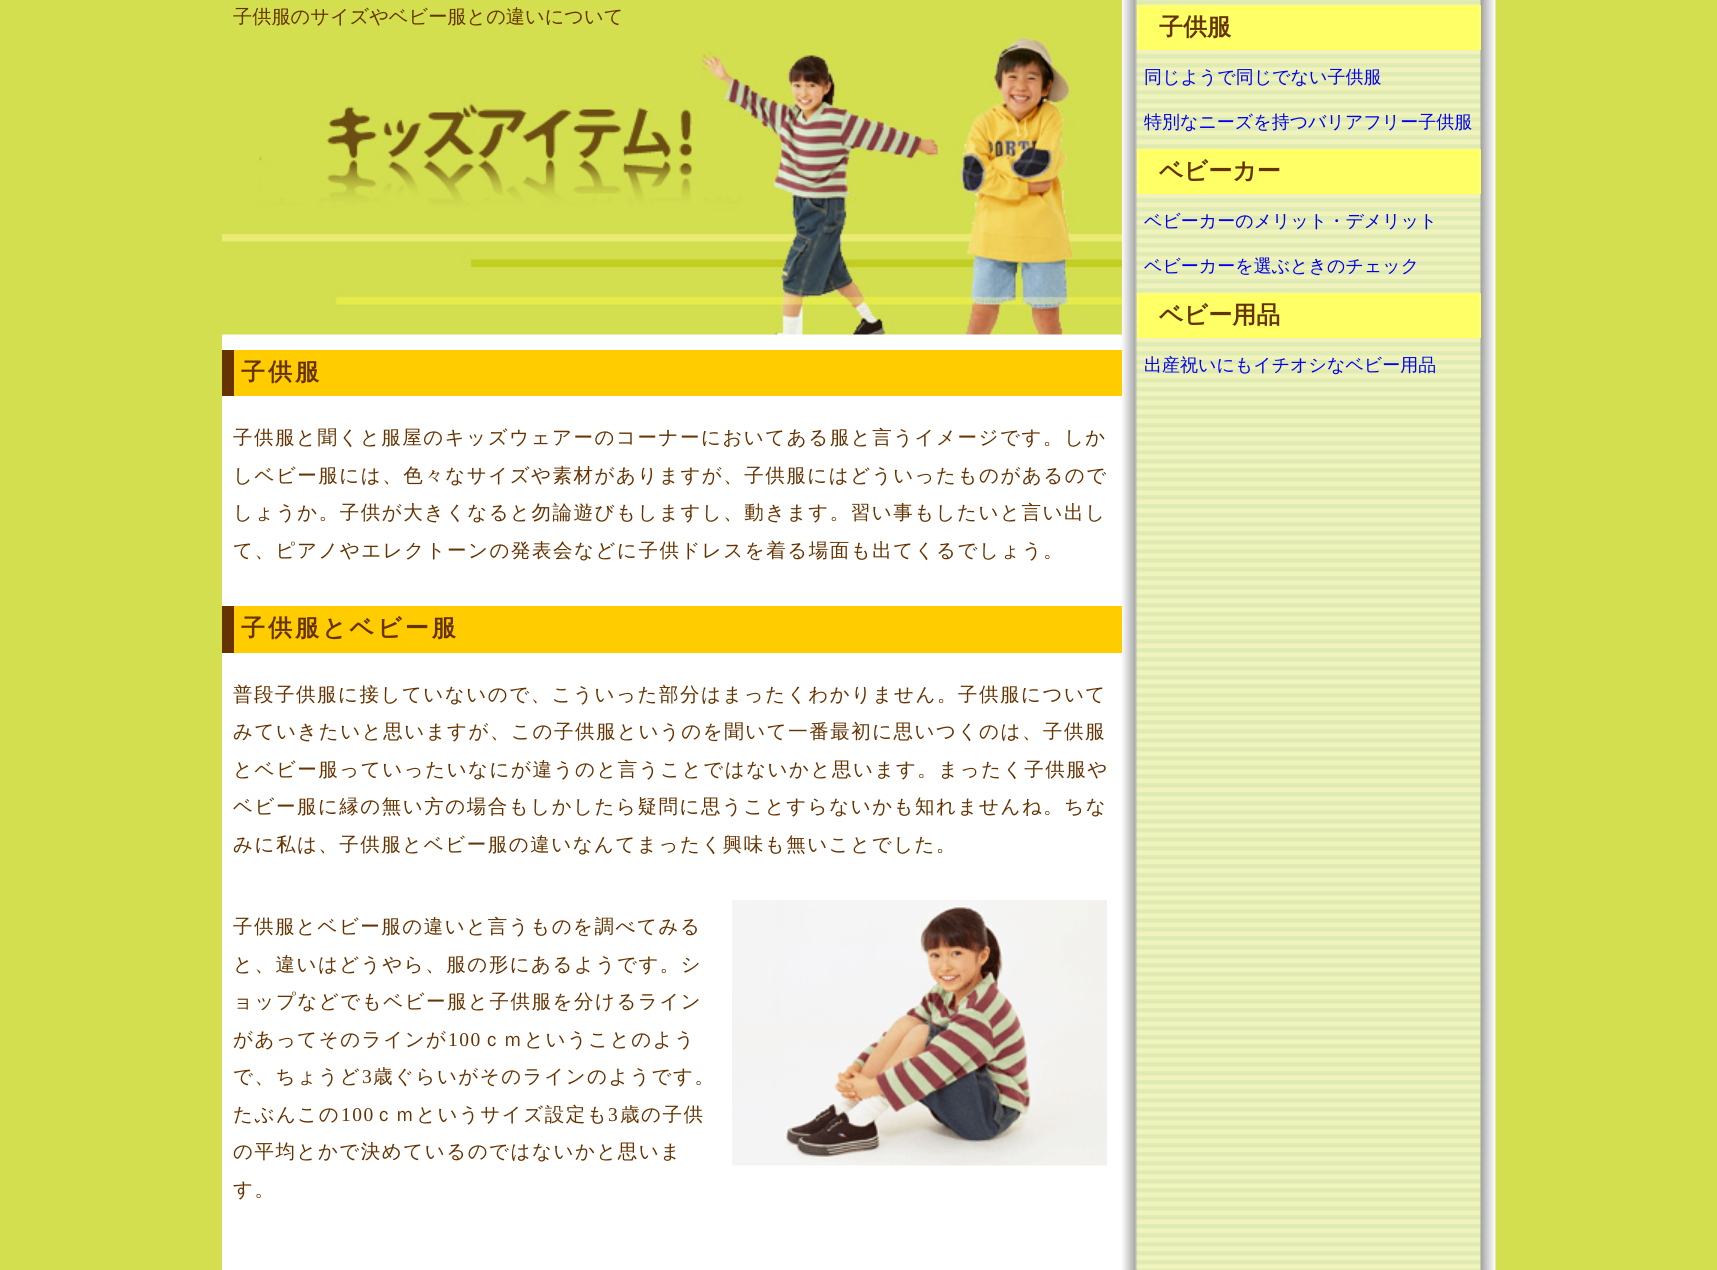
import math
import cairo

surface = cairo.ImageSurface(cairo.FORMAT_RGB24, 1717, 1270)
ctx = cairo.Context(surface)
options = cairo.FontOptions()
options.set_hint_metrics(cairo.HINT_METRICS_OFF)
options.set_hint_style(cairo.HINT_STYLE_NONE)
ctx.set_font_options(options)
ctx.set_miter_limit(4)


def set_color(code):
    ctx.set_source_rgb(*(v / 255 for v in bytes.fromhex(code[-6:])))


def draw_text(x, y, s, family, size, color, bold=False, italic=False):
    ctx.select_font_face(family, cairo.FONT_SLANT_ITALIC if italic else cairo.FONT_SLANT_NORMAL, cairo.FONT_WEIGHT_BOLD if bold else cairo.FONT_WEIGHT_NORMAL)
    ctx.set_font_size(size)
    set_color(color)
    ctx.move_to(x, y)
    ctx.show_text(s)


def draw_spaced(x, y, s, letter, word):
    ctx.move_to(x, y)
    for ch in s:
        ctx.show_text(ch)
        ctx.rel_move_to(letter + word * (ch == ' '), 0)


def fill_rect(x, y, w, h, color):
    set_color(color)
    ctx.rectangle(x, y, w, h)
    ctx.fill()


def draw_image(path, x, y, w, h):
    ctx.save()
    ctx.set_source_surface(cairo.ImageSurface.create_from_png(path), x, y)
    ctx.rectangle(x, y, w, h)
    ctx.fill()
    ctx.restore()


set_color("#d3df4f")
ctx.paint()
draw_image("assets/img1.png", 222, 0, 1274, 1270)
fill_rect(222, 0, 900, 35, "#d3df4f")
draw_text(233, 23, "子供服のサイズやベビー服との違いについて", "WenQuanYi Zen Hei Medium", 19.2, "#663300")
draw_image("assets/img2.png", 222, 35, 900, 300)
fill_rect(234, 350, 888, 46, "#ffcc00")
fill_rect(222, 350, 12, 46, "#663300")
ctx.select_font_face("WenQuanYi Zen Hei", cairo.FONT_SLANT_NORMAL, cairo.FONT_WEIGHT_BOLD)
ctx.set_font_size(24)
draw_spaced(241, 380, "子供服", 3, 0)
ctx.select_font_face("WenQuanYi Zen Hei Medium")
ctx.set_font_size(19.5)
draw_spaced(233, 444, "子供服と聞くと服屋のキッズウェアーのコーナーにおいてある服と言うイメージです。しか", 1.5, 0)
draw_spaced(233, 482, "しベビー服には、色々なサイズや素材がありますが、子供服にはどういったものがあるので", 1.5, 0)
draw_spaced(233, 519, "しょうか。子供が大きくなると勿論遊びもしますし、動きます。習い事もしたいと言い出し", 1.5, 0)
draw_spaced(233, 557, "て、ピアノやエレクトーンの発表会などに子供ドレスを着る場面も出てくるでしょう。", 1.5, 0)
fill_rect(234, 606, 888, 47, "#ffcc00")
fill_rect(222, 606, 12, 47, "#663300")
ctx.select_font_face("WenQuanYi Zen Hei", cairo.FONT_SLANT_NORMAL, cairo.FONT_WEIGHT_BOLD)
ctx.set_font_size(24)
draw_spaced(241, 636, "子供服とベビー服", 3, 0)
ctx.select_font_face("WenQuanYi Zen Hei Medium")
ctx.set_font_size(19.5)
draw_spaced(233, 701, "普段子供服に接していないので、こういった部分はまったくわかりません。子供服について", 1.5, 0)
draw_spaced(233, 738, "みていきたいと思いますが、この子供服というのを聞いて一番最初に思いつくのは、子供服", 1.5, 0)
draw_spaced(233, 776, "とベビー服っていったいなにが違うのと言うことではないかと思います。まったく子供服や", 1.5, 0)
draw_spaced(233, 813, "ベビー服に縁の無い方の場合もしかしたら疑問に思うことすらないかも知れませんね。ちな", 1.5, 0)
draw_spaced(233, 851, "みに私は、子供服とベビー服の違いなんてまったく興味も無いことでした。", 1.5, 0)
draw_spaced(233, 933, "子供服とベビー服の違いと言うものを調べてみる", 1.5, 0)
draw_spaced(233, 971, "と、違いはどうやら、服の形にあるようです。シ", 1.5, 0)
draw_spaced(233, 1008, "ョップなどでもベビー服と子供服を分けるライン", 1.5, 0)
draw_spaced(233, 1046, "があってそのラインが", 1.5, 0)
ctx.select_font_face("Liberation Serif")
draw_spaced(448, 1046, "100", 1.5, 0)
ctx.select_font_face("WenQuanYi Zen Hei Medium")
draw_spaced(482, 1046, "ｃｍということのよう", 1.5, 0)
draw_spaced(233, 1083, "で、ちょうど", 1.5, 0)
ctx.select_font_face("Liberation Serif")
draw_spaced(362, 1083, "3", 1.5, 0)
ctx.select_font_face("WenQuanYi Zen Hei Medium")
draw_spaced(373, 1083, "歳ぐらいがそのラインのようです。", 1.5, 0)
draw_spaced(233, 1121, "たぶんこの", 1.5, 0)
ctx.select_font_face("Liberation Serif")
draw_spaced(341, 1121, "100", 1.5, 0)
ctx.select_font_face("WenQuanYi Zen Hei Medium")
draw_spaced(374, 1121, "ｃｍというサイズ設定も", 1.5, 0)
ctx.select_font_face("Liberation Serif")
draw_spaced(608, 1121, "3", 1.5, 0)
ctx.select_font_face("WenQuanYi Zen Hei Medium")
draw_spaced(620, 1121, "歳の子供", 1.5, 0)
draw_spaced(233, 1158, "の平均とかで決めているのではないかと思いま", 1.5, 0)
draw_spaced(233, 1196, "す。", 1.5, 0)
draw_image("assets/img3.png", 732, 900, 375, 266)
fill_rect(1137, 5, 344, 45, "#ffff66")
draw_text(1159, 35, "子供服", "WenQuanYi Zen Hei", 24, "#663300", bold=True)
draw_text(1144, 83, "同じようで同じでない子供服", "WenQuanYi Zen Hei Medium", 18, "#0000ee")
draw_text(1144, 128, "特別なニーズを持つバリアフリー子供服", "WenQuanYi Zen Hei Medium", 18, "#0000ee")
fill_rect(1137, 149, 344, 45, "#ffff66")
draw_text(1159, 179, "ベビーカー", "WenQuanYi Zen Hei", 24, "#663300", bold=True)
draw_text(1144, 227, "ベビーカーのメリット・デメリット", "WenQuanYi Zen Hei Medium", 18, "#0000ee")
draw_text(1144, 272, "ベビーカーを選ぶときのチェック", "WenQuanYi Zen Hei Medium", 18, "#0000ee")
fill_rect(1137, 293, 344, 45, "#ffff66")
draw_text(1159, 323, "ベビー用品", "WenQuanYi Zen Hei", 24, "#663300", bold=True)
draw_text(1144, 371, "出産祝いにもイチオシなベビー用品", "WenQuanYi Zen Hei Medium", 18, "#0000ee")
surface.write_to_png("output.png")
